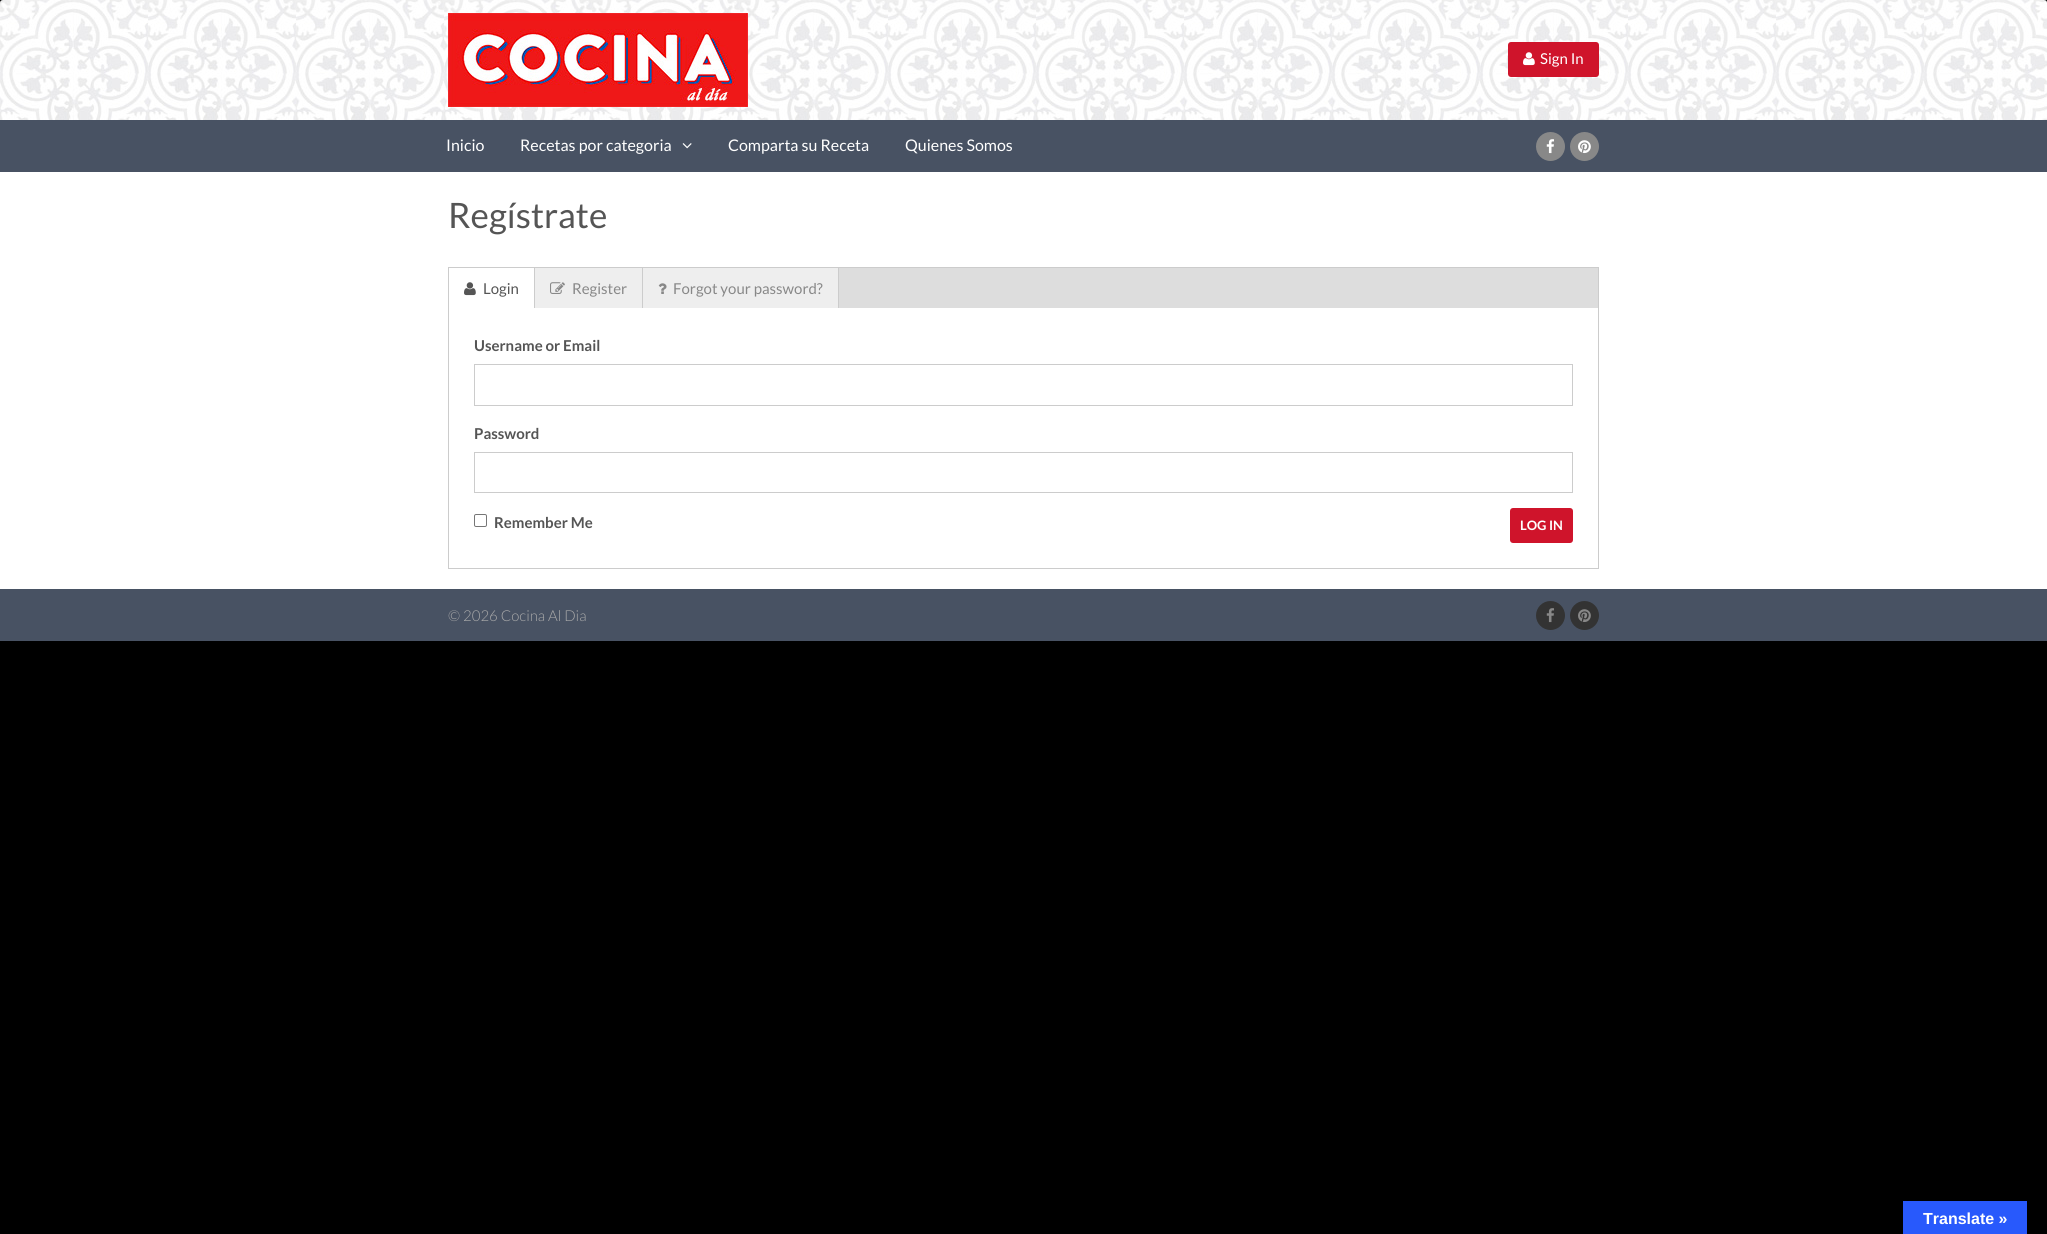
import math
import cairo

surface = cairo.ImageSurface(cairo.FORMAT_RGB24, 2047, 1234)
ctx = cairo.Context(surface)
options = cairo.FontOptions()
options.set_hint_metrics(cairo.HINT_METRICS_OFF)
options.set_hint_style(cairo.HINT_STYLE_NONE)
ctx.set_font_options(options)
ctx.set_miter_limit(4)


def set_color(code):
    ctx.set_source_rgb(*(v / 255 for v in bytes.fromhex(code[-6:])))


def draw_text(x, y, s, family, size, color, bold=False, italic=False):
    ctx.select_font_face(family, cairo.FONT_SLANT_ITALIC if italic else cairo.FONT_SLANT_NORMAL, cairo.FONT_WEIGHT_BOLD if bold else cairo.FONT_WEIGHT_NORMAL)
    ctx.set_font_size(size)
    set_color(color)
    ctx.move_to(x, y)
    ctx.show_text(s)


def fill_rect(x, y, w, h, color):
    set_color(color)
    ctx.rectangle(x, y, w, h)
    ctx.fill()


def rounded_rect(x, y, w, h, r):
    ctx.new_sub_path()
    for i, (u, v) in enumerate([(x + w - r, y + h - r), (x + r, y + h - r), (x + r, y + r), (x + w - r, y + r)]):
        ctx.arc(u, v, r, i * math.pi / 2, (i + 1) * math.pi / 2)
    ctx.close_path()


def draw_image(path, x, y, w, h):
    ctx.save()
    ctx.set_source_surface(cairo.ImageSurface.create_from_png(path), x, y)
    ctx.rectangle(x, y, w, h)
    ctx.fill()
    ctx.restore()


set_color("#000000")
ctx.paint()
draw_image("assets/img1.png", 0, 0, 2047, 120)
draw_image("assets/img2.png", 448, 13, 300, 94)
set_color("#cf142b")
rounded_rect(1508, 42, 91, 35, 3)
ctx.fill()
draw_image("assets/img3.png", 1523, 52, 12, 14)
draw_text(1540, 64, "Sign In", "Lato", 15, "#ffffff")
fill_rect(0, 120, 2047, 52, "#485263")
draw_text(446, 151, "Inicio", "Lato", 16, "#ffffff")
draw_text(520, 151, "Recetas por categoria", "Lato", 16, "#ffffff")
draw_image("assets/img4.png", 682, 143, 10, 6)
draw_text(728, 151, "Comparta su Receta", "Lato", 16, "#ffffff")
draw_text(905, 151, "Quienes Somos", "Lato", 16, "#ffffff")
set_color("#888888")
ctx.new_path()
ctx.arc(1550.5, 146.5, 14.5, 0, 2 * math.pi)
ctx.fill()
draw_image("assets/img5.png", 1546, 139, 8, 15)
ctx.arc(1584.5, 146.5, 14.5, 0, 2 * math.pi)
ctx.fill()
draw_image("assets/img6.png", 1578, 140, 13, 14)
fill_rect(0, 172, 2047, 417, "#ffffff")
draw_text(448, 228, "Regístrate", "Lato", 35, "#555555")
fill_rect(839, 268, 759, 40, "#dddddd")
fill_rect(448, 267, 1151, 1, "#cccccc")
fill_rect(1598, 267, 1, 302, "#cccccc")
fill_rect(448, 267, 1, 41, "#cccccc")
fill_rect(534, 268, 1, 40, "#cccccc")
draw_image("assets/img7.png", 464, 282, 12, 14)
draw_text(483, 294, "Login", "Lato", 15, "#555555")
fill_rect(535, 268, 107, 40, "#eeeeee")
fill_rect(642, 268, 1, 40, "#cccccc")
draw_image("assets/img8.png", 550, 282, 15, 12)
draw_text(572, 294, "Register", "Lato", 15, "#888888")
fill_rect(643, 268, 195, 40, "#eeeeee")
fill_rect(838, 268, 1, 40, "#cccccc")
draw_image("assets/img9.png", 658, 283, 9, 11)
draw_text(673, 294, "Forgot your password?", "Lato", 15, "#888888")
fill_rect(448, 568, 1151, 1, "#cccccc")
fill_rect(448, 308, 1, 261, "#cccccc")
draw_text(474, 351, "Username or Email", "Lato", 15, "#555555", bold=True)
ctx.rectangle(474.5, 364.5, 1098, 41)
set_color("#cccccc")
ctx.set_line_width(1)
ctx.stroke()
draw_text(474, 439, "Password", "Lato", 15, "#555555", bold=True)
ctx.rectangle(474.5, 452.5, 1098, 40)
set_color("#cccccc")
ctx.stroke()
rounded_rect(474.5, 514.5, 12, 12, 1.5)
set_color("#767676")
ctx.stroke()
draw_text(494, 528, "Remember Me", "Lato", 15, "#555555", bold=True)
set_color("#cf142b")
rounded_rect(1510, 508, 63, 35, 3)
ctx.fill()
draw_text(1520, 530, "LOG IN", "Lato", 13, "#ffffff", bold=True)
fill_rect(0, 589, 2047, 52, "#485263")
draw_text(448, 621, "© 2026 Cocina Al Dia", "Lato Light", 15, "#aaaaaa")
set_color("#333333")
ctx.new_path()
ctx.arc(1550.5, 615.5, 14.5, 0, 2 * math.pi)
ctx.fill()
draw_image("assets/img10.png", 1546, 608, 8, 15)
ctx.arc(1584.5, 615.5, 14.5, 0, 2 * math.pi)
ctx.fill()
draw_image("assets/img11.png", 1578, 609, 13, 13)
fill_rect(1903, 1201, 124, 33, "#2859fc")
draw_text(1923, 1224, "Translate »", "Liberation Sans", 16, "#ffffff", bold=True)
surface.write_to_png("output.png")
